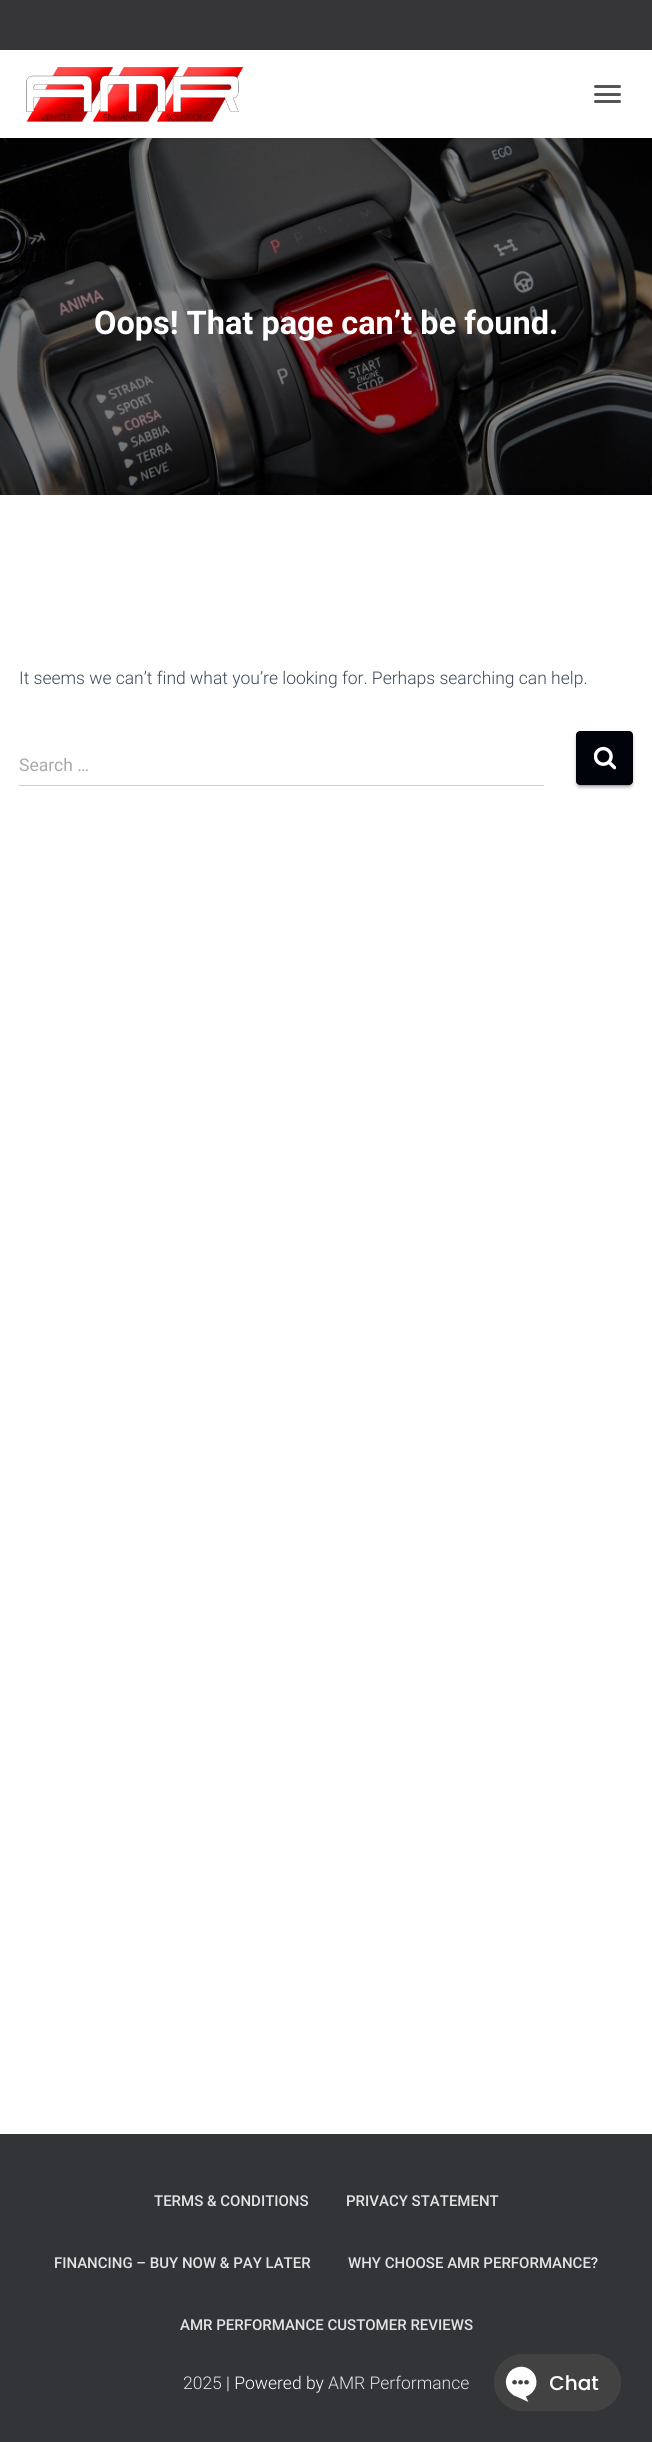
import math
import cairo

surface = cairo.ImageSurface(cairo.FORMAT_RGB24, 652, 2442)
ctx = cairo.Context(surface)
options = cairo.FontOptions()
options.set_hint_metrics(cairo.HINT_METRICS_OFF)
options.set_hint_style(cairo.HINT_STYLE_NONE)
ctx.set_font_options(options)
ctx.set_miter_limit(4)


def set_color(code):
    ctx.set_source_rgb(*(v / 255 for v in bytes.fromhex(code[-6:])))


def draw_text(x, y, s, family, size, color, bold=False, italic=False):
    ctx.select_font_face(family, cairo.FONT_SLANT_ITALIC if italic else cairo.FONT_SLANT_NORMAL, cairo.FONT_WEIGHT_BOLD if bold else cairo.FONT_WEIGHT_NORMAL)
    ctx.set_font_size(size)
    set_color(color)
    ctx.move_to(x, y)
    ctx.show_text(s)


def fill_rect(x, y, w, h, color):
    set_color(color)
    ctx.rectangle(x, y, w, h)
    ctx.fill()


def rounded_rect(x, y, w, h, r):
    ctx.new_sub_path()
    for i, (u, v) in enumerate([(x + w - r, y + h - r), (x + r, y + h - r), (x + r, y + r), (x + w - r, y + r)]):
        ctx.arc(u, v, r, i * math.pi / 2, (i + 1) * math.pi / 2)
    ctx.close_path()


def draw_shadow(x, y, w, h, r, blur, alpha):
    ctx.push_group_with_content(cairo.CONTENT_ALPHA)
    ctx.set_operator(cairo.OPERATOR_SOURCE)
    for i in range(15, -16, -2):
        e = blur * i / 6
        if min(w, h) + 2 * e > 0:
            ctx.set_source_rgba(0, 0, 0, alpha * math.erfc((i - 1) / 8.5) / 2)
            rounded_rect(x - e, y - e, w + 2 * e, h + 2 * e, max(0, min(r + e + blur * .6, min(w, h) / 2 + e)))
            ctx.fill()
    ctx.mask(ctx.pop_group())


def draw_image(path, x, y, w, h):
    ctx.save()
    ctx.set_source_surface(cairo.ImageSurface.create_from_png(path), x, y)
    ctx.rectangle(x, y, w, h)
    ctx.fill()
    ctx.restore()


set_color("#363537")
ctx.paint()
draw_image("assets/img2.png", 0, 138, 652, 357)
set_color("#000000")
draw_shadow(8, 59, 637, 72, 0, 6, 0.42)
fill_rect(0, 50, 652, 88, "#ffffff")
draw_image("assets/img1.png", 26, 67, 218, 55)
set_color("#555555")
rounded_rect(594, 85, 27, 3, 1.5)
ctx.fill()
rounded_rect(594, 93, 27, 3, 1.5)
ctx.fill()
rounded_rect(594, 100, 27, 3, 1.5)
ctx.fill()
draw_text(94, 334, "Oops! That page can’t be found.", "Roboto", 32.5, "#ffffff", bold=True)
fill_rect(0, 495, 652, 1639, "#ffffff")
draw_text(19, 684, "It seems we can’t find what you’re looking for. Perhaps searching can help.", "Roboto Light", 17.5, "#3c4858")
draw_text(19, 771, "Search …", "Roboto", 17.5, "#aaaaaa")
fill_rect(19, 785, 525, 1, "#d2d2d2")
set_color("#00030a")
draw_shadow(576, 733, 57, 53, 4, 3, 0.12)
draw_shadow(579, 738, 51, 48, 1, 0.5, 0.2)
draw_shadow(576, 734, 57, 54, 4, 1, 0.14)
set_color("#00030a")
rounded_rect(576, 731, 57, 54, 4)
ctx.fill()
draw_image("assets/img3.png", 594, 746, 22, 24)
fill_rect(0, 2134, 652, 308, "#323437")
draw_text(154, 2206, "TERMS & CONDITIONS", "Roboto Medium", 15, "#e2e3e3")
draw_text(346, 2206, "PRIVACY STATEMENT", "Roboto Medium", 15, "#e2e3e3")
draw_text(54, 2268, "FINANCING – BUY NOW & PAY LATER", "Roboto Medium", 15, "#e2e3e3")
draw_text(348, 2268, "WHY CHOOSE AMR PERFORMANCE?", "Roboto Medium", 15, "#e2e3e3")
draw_text(180, 2330, "AMR PERFORMANCE CUSTOMER REVIEWS", "Roboto Medium", 15, "#e2e3e3")
draw_text(183, 2389, "2025", "Roboto Light", 17.5, "#e2e3e3")
draw_text(226, 2389, "| Powered by", "Roboto Light", 17.5, "#ffffff")
draw_text(328, 2389, "AMR Performance", "Roboto Light", 17.5, "#e2e3e3")
draw_image("assets/img4.png", 494, 2354, 127, 57)
surface.write_to_png("output.png")
